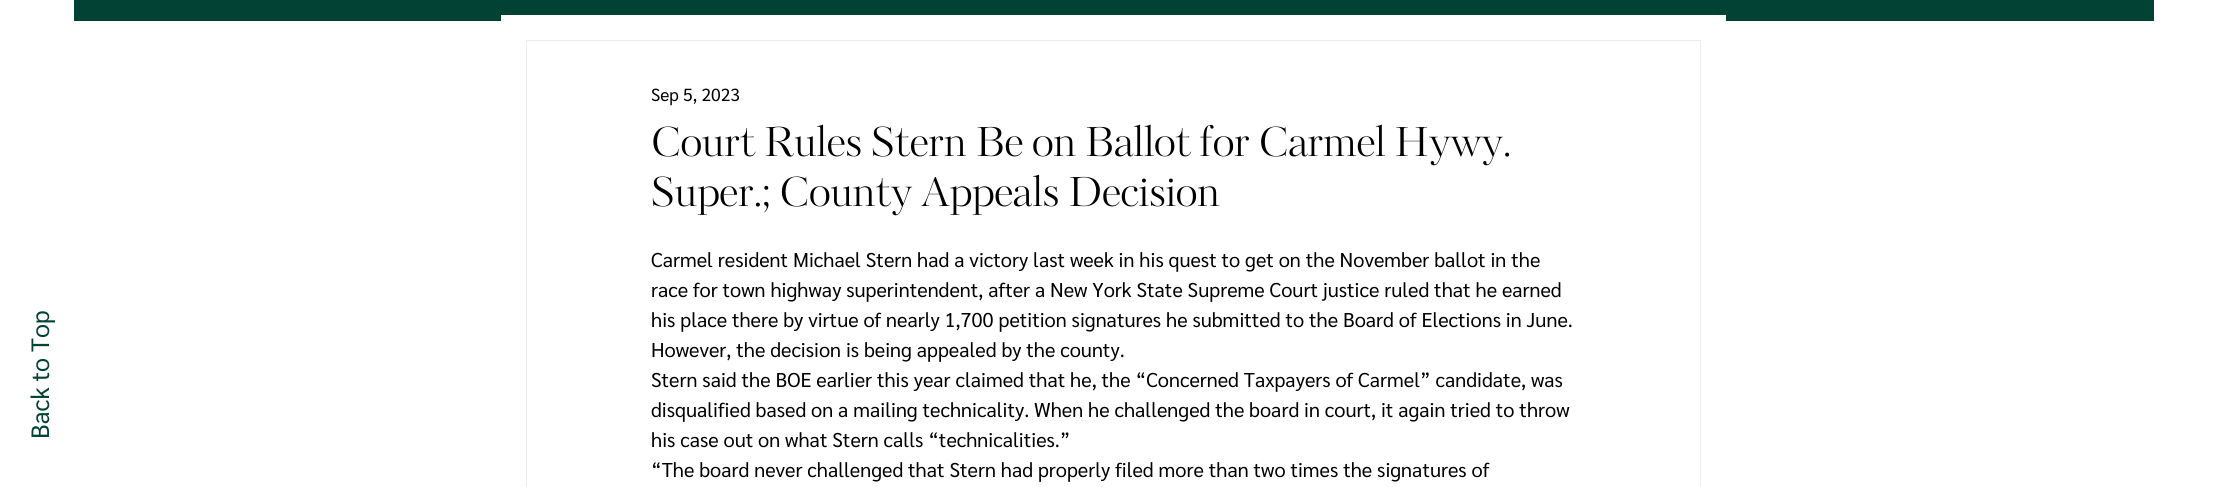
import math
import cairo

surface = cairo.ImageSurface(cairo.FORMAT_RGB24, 2227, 487)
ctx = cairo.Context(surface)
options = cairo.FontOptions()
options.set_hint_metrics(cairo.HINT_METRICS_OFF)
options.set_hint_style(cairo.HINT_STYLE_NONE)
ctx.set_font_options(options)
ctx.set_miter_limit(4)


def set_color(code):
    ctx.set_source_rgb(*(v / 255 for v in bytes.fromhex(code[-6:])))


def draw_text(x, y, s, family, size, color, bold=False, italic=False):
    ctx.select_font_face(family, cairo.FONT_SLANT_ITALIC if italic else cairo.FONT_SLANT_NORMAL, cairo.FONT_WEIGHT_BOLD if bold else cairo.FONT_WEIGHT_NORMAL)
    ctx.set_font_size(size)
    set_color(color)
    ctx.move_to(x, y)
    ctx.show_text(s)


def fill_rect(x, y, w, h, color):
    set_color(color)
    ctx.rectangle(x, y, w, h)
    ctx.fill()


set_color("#ffffff")
ctx.paint()
fill_rect(74, 0, 2080, 21, "#014235")
ctx.save()
ctx.translate(49, 439)
ctx.rotate(-90 * math.pi / 180)
draw_text(0, 0, "Back to Top", "Sarabun", 25, "#014235")
ctx.restore()
fill_rect(501, 15, 1225, 6, "#ffffff")
ctx.rectangle(526.5, 40.5, 1174, 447)
set_color("#eeecec")
ctx.set_line_width(1)
ctx.stroke()
draw_text(651, 101, "Sep 5, 2023", "Sarabun", 17.5, "#000000")
draw_text(651, 156, "Court Rules Stern Be on Ballot for Carmel Hywy.", "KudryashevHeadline", 40, "#000000")
draw_text(651, 206, "Super.; County Appeals Decision", "KudryashevHeadline", 40, "#000000")
draw_text(651, 267, "Carmel resident Michael Stern had a victory last week in his quest to get on the November ballot in the", "Sarabun", 20, "#000000")
draw_text(651, 297, "race for town highway superintendent, after a New York State Supreme Court justice ruled that he earned", "Sarabun", 20, "#000000")
draw_text(651, 327, "his place there by virtue of nearly 1,700 petition signatures he submitted to the Board of Elections in June.", "Sarabun", 20, "#000000")
draw_text(651, 357, "However, the decision is being appealed by the county.", "Sarabun", 20, "#000000")
draw_text(651, 387, "Stern said the BOE earlier this year claimed that he, the “Concerned Taxpayers of Carmel” candidate, was", "Sarabun", 20, "#000000")
draw_text(651, 417, "disqualified based on a mailing technicality. When he challenged the board in court, it again tried to throw", "Sarabun", 20, "#000000")
draw_text(651, 447, "his case out on what Stern calls “technicalities.”", "Sarabun", 20, "#000000")
draw_text(651, 477, "“The board never challenged that Stern had properly filed more than two times the signatures of", "Sarabun", 20, "#000000")
surface.write_to_png("output.png")
